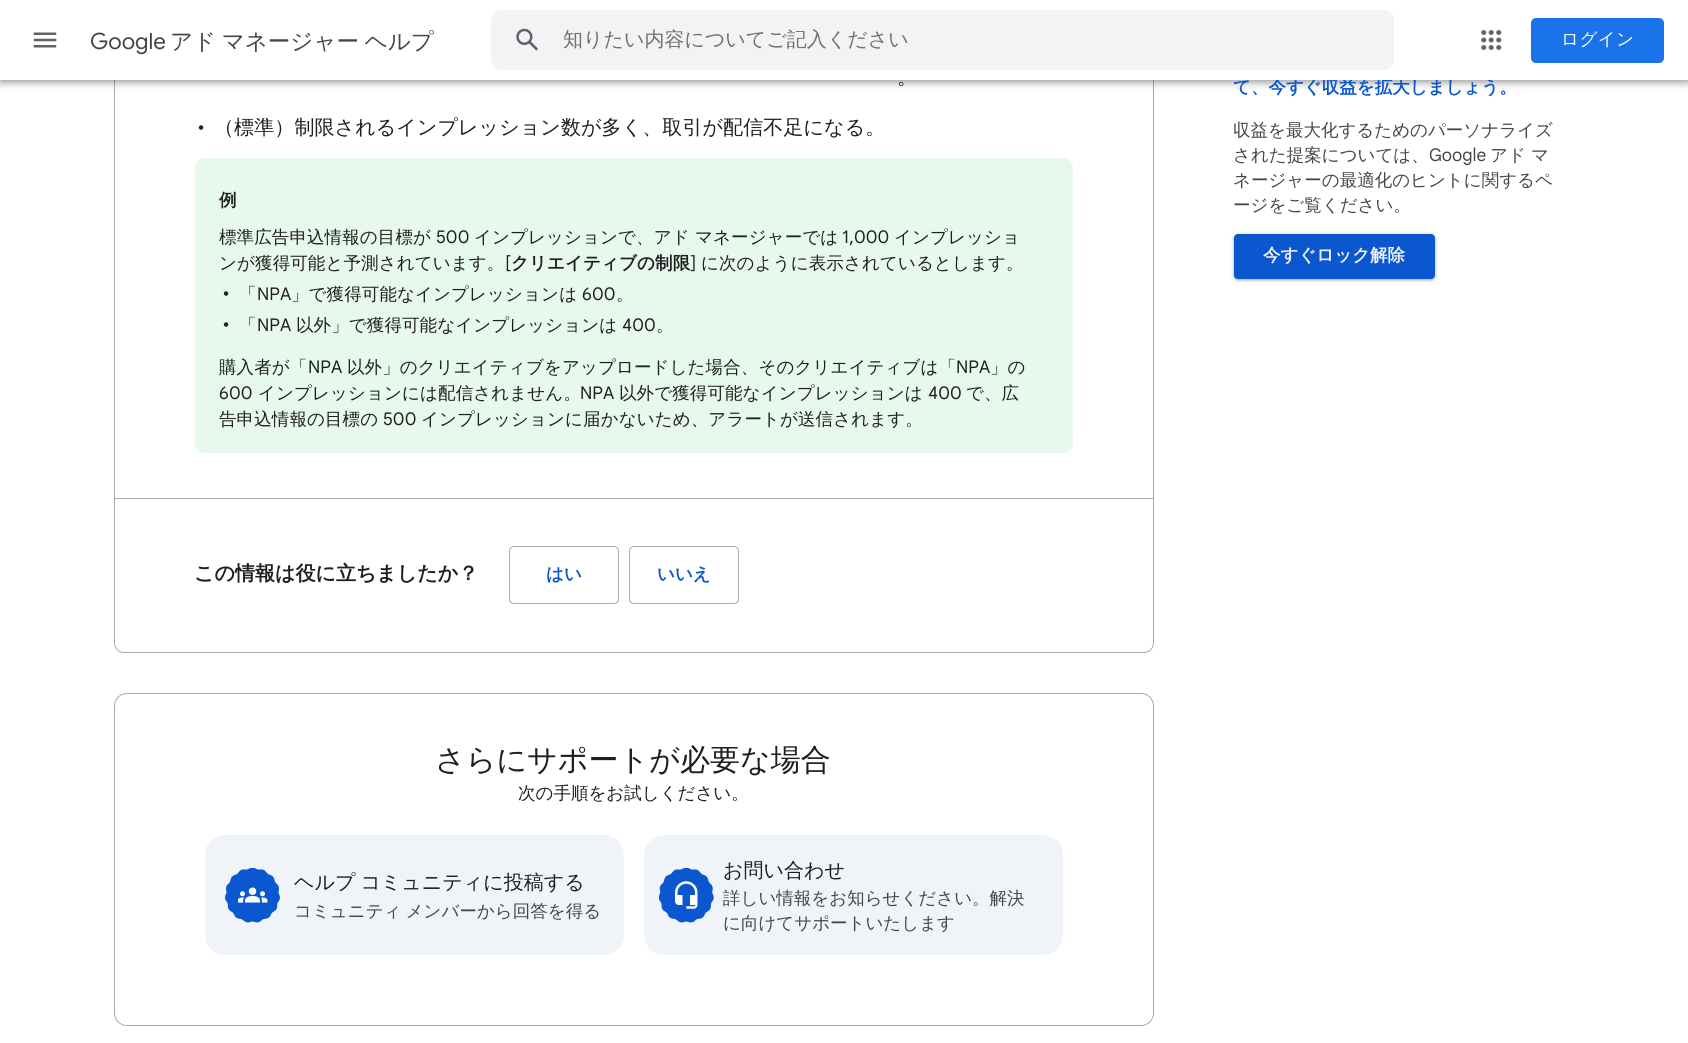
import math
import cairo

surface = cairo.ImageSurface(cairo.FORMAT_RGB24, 1688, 1043)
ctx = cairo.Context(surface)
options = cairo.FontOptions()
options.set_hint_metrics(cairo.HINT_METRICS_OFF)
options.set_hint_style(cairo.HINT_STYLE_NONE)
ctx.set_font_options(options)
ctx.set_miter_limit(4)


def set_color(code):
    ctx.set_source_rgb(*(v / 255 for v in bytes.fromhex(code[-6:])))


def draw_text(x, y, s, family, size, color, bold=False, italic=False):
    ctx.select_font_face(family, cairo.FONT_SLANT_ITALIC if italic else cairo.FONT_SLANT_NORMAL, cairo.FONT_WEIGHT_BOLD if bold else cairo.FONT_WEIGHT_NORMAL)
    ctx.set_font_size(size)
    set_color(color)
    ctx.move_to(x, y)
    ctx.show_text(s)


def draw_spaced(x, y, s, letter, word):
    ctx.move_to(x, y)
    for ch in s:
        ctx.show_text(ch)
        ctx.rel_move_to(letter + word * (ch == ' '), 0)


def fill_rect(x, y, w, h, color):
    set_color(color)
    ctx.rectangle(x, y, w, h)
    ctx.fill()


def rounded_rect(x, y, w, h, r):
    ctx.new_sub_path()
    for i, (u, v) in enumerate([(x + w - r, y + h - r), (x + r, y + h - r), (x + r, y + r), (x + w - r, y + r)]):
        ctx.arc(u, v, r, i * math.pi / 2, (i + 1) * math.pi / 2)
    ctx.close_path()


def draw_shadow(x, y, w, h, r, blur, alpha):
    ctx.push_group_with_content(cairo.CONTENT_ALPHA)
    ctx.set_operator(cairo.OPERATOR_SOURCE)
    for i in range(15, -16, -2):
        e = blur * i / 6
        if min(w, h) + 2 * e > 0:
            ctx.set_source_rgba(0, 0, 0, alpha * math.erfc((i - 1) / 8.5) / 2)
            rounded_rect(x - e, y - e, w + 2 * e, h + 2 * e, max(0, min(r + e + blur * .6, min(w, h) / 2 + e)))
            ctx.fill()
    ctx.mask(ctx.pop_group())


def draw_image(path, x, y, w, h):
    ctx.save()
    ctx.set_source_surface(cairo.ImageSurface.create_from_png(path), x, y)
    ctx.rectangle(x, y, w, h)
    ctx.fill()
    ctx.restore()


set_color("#ffffff")
ctx.paint()
rounded_rect(114.5, -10.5, 1039, 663, 9.5)
set_color("#a9acaa")
ctx.set_line_width(1)
ctx.stroke()
set_color("#000000")
draw_shadow(1, 4, 1687, 77, 0, 2.5, 0.2)
draw_shadow(0, 1, 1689, 80, 0, 6, 0.12)
draw_shadow(0, 5, 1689, 80, 0, 3, 0.14)
draw_text(1233, 93, "て、今すぐ収益を拡大しましょう。", "WenQuanYi Zen Hei", 17.5, "#0b57d0", bold=True)
fill_rect(0, 0, 1688, 80, "#ffffff")
draw_image("assets/img1.png", 33, 32, 24, 16)
draw_text(90, 49, "Google", "Google Sans", 22.5, "#444746")
ctx.select_font_face("WenQuanYi Zen Hei Medium")
draw_spaced(170, 49, "アド マネージャー ヘルプ", 0, -1)
set_color("#f1f3f4")
rounded_rect(491, 10, 903, 60, 10)
ctx.fill()
draw_image("assets/img2.png", 516, 28, 22, 23)
draw_text(563, 46, "知りたい内容についてご記入ください", "WenQuanYi Zen Hei Medium", 20, "#6f7070")
draw_image("assets/img3.png", 1481, 30, 21, 20)
set_color("#1a73e8")
rounded_rect(1531, 18, 133, 45, 5)
ctx.fill()
ctx.set_font_size(17.5)
set_color("#ffffff")
draw_spaced(1561, 45, "ログイン", 0.5, 0)
ctx.set_font_size(20)
set_color("#1f1f1f")
draw_spaced(897, 84, "。", 0.1, 0)
ctx.select_font_face("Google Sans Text")
draw_spaced(197, 134, "•", 0.1, 0)
ctx.select_font_face("WenQuanYi Zen Hei Medium")
draw_spaced(214, 134, "（標準）制限されるインプレッション数が多く、取引が配信不足になる。", 0.1, 0)
set_color("#e7f8ed")
rounded_rect(195, 158, 878, 295, 10)
ctx.fill()
ctx.select_font_face("WenQuanYi Zen Hei", cairo.FONT_SLANT_NORMAL, cairo.FONT_WEIGHT_BOLD)
ctx.set_font_size(17.5)
set_color("#1f1f1f")
draw_spaced(219, 206, "例", 0.1, 0)
ctx.select_font_face("WenQuanYi Zen Hei Medium")
draw_spaced(219, 243, "標準広告申込情報の目標が", 0.1, 0)
ctx.select_font_face("Google Sans Text")
draw_spaced(436, 243, "500", 0.1, 0)
ctx.select_font_face("WenQuanYi Zen Hei Medium")
draw_spaced(474, 243, "インプレッションで、アド マネージャーでは", 0.1, 0)
ctx.select_font_face("Google Sans Text")
draw_spaced(842, 243, "1,000", 0.1, 0)
ctx.select_font_face("WenQuanYi Zen Hei Medium")
draw_spaced(894, 243, "インプレッショ", 0.1, 0)
draw_spaced(219, 269, "ンが獲得可能と予測されています。", 0.1, 0)
ctx.select_font_face("Google Sans Text")
draw_spaced(505, 269, "[", 0.1, 0)
ctx.select_font_face("WenQuanYi Zen Hei", cairo.FONT_SLANT_NORMAL, cairo.FONT_WEIGHT_BOLD)
draw_spaced(511, 269, "クリエイティブの制限", 0.1, 0)
ctx.select_font_face("Google Sans Text")
draw_spaced(690, 269, "]", 0.1, 0)
ctx.select_font_face("WenQuanYi Zen Hei Medium")
draw_spaced(701, 269, "に次のように表示されているとします。", 0.1, 0)
ctx.select_font_face("Google Sans Text")
ctx.set_font_size(20)
draw_spaced(222, 300, "•", 0.1, 0)
ctx.select_font_face("WenQuanYi Zen Hei Medium")
ctx.set_font_size(17.5)
draw_spaced(239, 300, "「", 0.1, 0)
ctx.select_font_face("Google Sans Text")
draw_spaced(257, 300, "NPA", 0.1, 0)
ctx.select_font_face("WenQuanYi Zen Hei Medium")
draw_spaced(291, 300, "」で獲得可能なインプレッションは", 0.1, 0)
ctx.select_font_face("Google Sans Text")
draw_spaced(582, 300, "600", 0.1, 0)
ctx.select_font_face("WenQuanYi Zen Hei Medium")
draw_spaced(616, 300, "。", 0.1, 0)
ctx.select_font_face("Google Sans Text")
ctx.set_font_size(20)
draw_spaced(222, 331, "•", 0.1, 0)
ctx.select_font_face("WenQuanYi Zen Hei Medium")
ctx.set_font_size(17.5)
draw_spaced(239, 331, "「", 0.1, 0)
ctx.select_font_face("Google Sans Text")
draw_spaced(257, 331, "NPA", 0.1, 0)
ctx.select_font_face("WenQuanYi Zen Hei Medium")
draw_spaced(296, 331, "以外」で獲得可能なインプレッションは", 0.1, 0)
ctx.select_font_face("Google Sans Text")
draw_spaced(622, 331, "400", 0.1, 0)
ctx.select_font_face("WenQuanYi Zen Hei Medium")
draw_spaced(656, 331, "。", 0.1, 0)
draw_spaced(219, 373, "購入者が「", 0.1, 0)
ctx.select_font_face("Google Sans Text")
draw_spaced(308, 373, "NPA", 0.1, 0)
ctx.select_font_face("WenQuanYi Zen Hei Medium")
draw_spaced(347, 373, "以外」のクリエイティブをアップロードした場合、そのクリエイティブは「", 0.1, 0)
ctx.select_font_face("Google Sans Text")
draw_spaced(956, 373, "NPA", 0.1, 0)
ctx.select_font_face("WenQuanYi Zen Hei Medium")
draw_spaced(990, 373, "」の", 0.1, 0)
ctx.select_font_face("Google Sans Text")
draw_spaced(219, 399, "600", 0.1, 0)
ctx.select_font_face("WenQuanYi Zen Hei Medium")
draw_spaced(258, 399, "インプレッションには配信されません。", 0.1, 0)
ctx.select_font_face("Google Sans Text")
draw_spaced(580, 399, "NPA", 0.1, 0)
ctx.select_font_face("WenQuanYi Zen Hei Medium")
draw_spaced(619, 399, "以外で獲得可能なインプレッションは", 0.1, 0)
ctx.select_font_face("Google Sans Text")
draw_spaced(928, 399, "400", 0.1, 0)
ctx.select_font_face("WenQuanYi Zen Hei Medium")
draw_spaced(966, 399, "で、広", 0.1, 0)
draw_spaced(219, 425, "告申込情報の目標の", 0.1, 0)
ctx.select_font_face("Google Sans Text")
draw_spaced(383, 425, "500", 0.1, 0)
ctx.select_font_face("WenQuanYi Zen Hei Medium")
draw_spaced(421, 425, "インプレッションに届かないため、アラートが送信されます。", 0.1, 0)
fill_rect(115, 498, 1038, 1, "#a9acaa")
draw_text(194, 580, "この情報は役に立ちましたか？", "WenQuanYi Zen Hei", 20, "#1f1f1f", bold=True)
rounded_rect(509.5, 546.5, 109, 57, 4.5)
set_color("#a9acaa")
ctx.stroke()
draw_text(546, 580, "はい", "WenQuanYi Zen Hei", 17.5, "#0b57d0", bold=True)
rounded_rect(629.5, 546.5, 109, 57, 4.5)
set_color("#a9acaa")
ctx.stroke()
draw_text(657, 580, "いいえ", "WenQuanYi Zen Hei", 17.5, "#0b57d0", bold=True)
rounded_rect(114.5, 693.5, 1039, 332, 12.5)
set_color("#a9acaa")
ctx.stroke()
draw_text(435, 770, "さらにサポートが必要な場合", "WenQuanYi Zen Hei Medium", 30, "#1f1f1f")
draw_text(518, 799, "次の手順をお試しください。", "WenQuanYi Zen Hei Medium", 17.5, "#1f1f1f")
set_color("#f0f4f9")
rounded_rect(205, 835, 419, 120, 20)
ctx.fill()
draw_image("assets/img4.png", 225, 868, 55, 55)
draw_image("assets/img5.png", 238, 887, 30, 16)
ctx.set_font_size(20)
set_color("#1f1f1f")
draw_spaced(294, 889, "ヘルプ コミュニティに投稿する", 0, -1)
ctx.set_font_size(17.5)
set_color("#444746")
draw_spaced(294, 917, "コミュニティ メンバーから回答を得る", 0, -1)
set_color("#f0f4f9")
rounded_rect(644, 835, 419, 120, 20)
ctx.fill()
draw_image("assets/img6.png", 659, 868, 55, 55)
draw_image("assets/img7.png", 675, 881, 23, 28)
draw_text(723, 877, "お問い合わせ", "WenQuanYi Zen Hei Medium", 20, "#1f1f1f")
draw_text(723, 904, "詳しい情報をお知らせください。解決", "WenQuanYi Zen Hei Medium", 17.5, "#444746")
draw_text(723, 929, "に向けてサポートいたします", "WenQuanYi Zen Hei Medium", 17.5, "#444746")
draw_text(1233, 136, "収益を最大化するためのパーソナライズ", "WenQuanYi Zen Hei Medium", 17.5, "#444746")
draw_text(1233, 161, "された提案については、", "WenQuanYi Zen Hei Medium", 17.5, "#444746")
draw_text(1429, 161, "Google", "Google Sans Text", 17.5, "#444746")
draw_text(1490, 161, "アド マ", "WenQuanYi Zen Hei Medium", 17.5, "#444746")
draw_text(1233, 186, "ネージャーの最適化のヒントに関するペ", "WenQuanYi Zen Hei Medium", 17.5, "#444746")
draw_text(1233, 211, "ージをご覧ください。", "WenQuanYi Zen Hei Medium", 17.5, "#444746")
set_color("#303030")
draw_shadow(1233, 234, 203, 47, 5, 2, 0.15)
draw_shadow(1234, 235, 201, 45, 4, 1, 0.3)
set_color("#0b57d0")
rounded_rect(1234, 234, 201, 45, 4)
ctx.fill()
draw_text(1263, 261, "今すぐロック解除", "WenQuanYi Zen Hei", 17.5, "#f2f2f2", bold=True)
surface.write_to_png("output.png")
